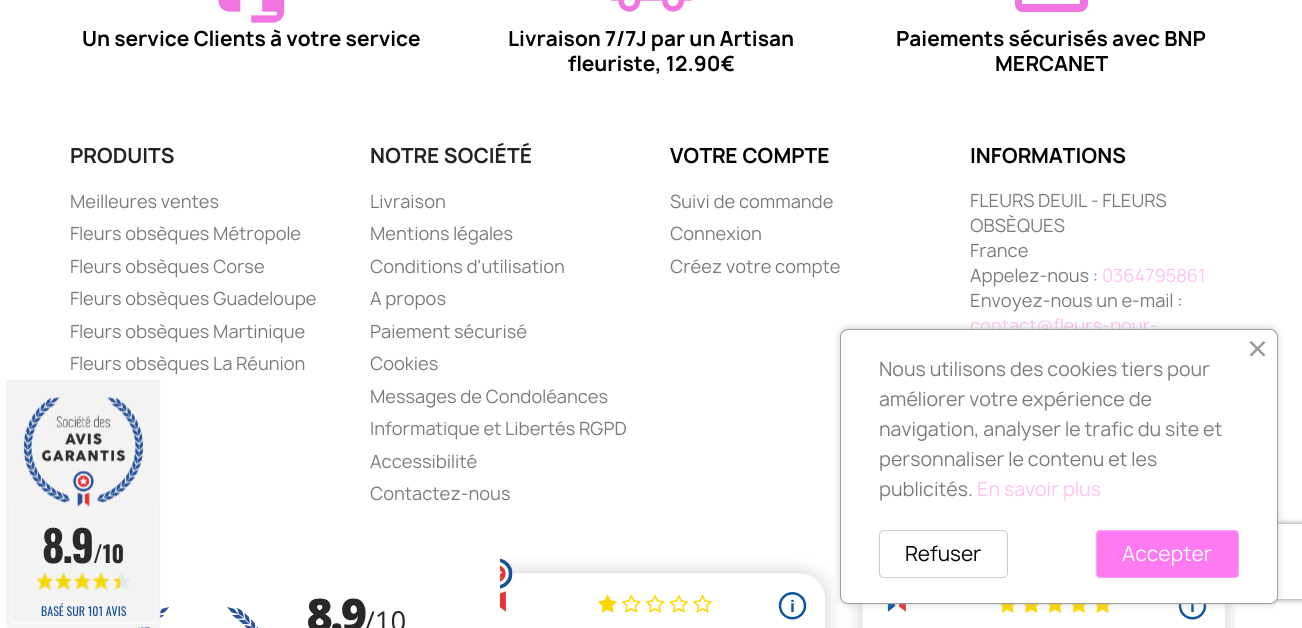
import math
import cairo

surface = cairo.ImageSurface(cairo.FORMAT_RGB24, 1302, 628)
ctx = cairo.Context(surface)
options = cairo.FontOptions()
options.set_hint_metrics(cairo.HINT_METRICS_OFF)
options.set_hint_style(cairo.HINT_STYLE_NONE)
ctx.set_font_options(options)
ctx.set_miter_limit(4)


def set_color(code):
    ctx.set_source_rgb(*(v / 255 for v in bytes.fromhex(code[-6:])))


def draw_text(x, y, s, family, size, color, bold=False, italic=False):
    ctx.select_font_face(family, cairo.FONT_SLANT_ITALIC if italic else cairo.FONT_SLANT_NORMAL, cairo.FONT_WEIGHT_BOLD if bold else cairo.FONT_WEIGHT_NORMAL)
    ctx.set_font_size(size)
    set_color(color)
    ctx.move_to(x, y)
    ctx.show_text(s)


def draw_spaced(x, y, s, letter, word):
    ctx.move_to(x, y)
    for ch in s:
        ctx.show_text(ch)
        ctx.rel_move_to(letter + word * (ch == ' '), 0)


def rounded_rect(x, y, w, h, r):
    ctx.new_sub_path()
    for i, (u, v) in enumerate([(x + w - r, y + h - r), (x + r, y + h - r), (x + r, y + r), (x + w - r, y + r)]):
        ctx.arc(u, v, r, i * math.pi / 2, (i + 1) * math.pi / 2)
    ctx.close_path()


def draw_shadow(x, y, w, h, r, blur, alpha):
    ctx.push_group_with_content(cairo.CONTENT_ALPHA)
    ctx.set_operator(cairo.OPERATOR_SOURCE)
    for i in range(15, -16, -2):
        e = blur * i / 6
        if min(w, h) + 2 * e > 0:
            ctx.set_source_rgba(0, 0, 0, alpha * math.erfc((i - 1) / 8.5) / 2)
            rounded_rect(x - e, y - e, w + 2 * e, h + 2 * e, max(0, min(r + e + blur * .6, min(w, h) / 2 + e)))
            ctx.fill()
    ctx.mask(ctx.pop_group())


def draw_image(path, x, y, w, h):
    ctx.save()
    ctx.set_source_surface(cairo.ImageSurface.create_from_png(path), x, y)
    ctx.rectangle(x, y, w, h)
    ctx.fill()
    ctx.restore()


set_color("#ffffff")
ctx.paint()
draw_image("assets/img1.png", 218, 0, 67, 23)
draw_text(82, 46, "Un service Clients à votre service", "Manrope", 20, "#000000", bold=True)
draw_image("assets/img2.png", 611, 0, 81, 12)
draw_text(508, 46, "Livraison 7/7J par un Artisan", "Manrope", 20, "#000000", bold=True)
draw_text(568, 71, "fleuriste, 12.90€", "Manrope", 20, "#000000", bold=True)
set_color("#f075e0")
ctx.new_path()
ctx.move_to(1080, -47)
ctx.line_to(1022, -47)
ctx.curve_to(1018, -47, 1015, -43, 1015, -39)
ctx.line_to(1015, 4)
ctx.curve_to(1015, 8, 1018, 12, 1022, 12)
ctx.line_to(1080, 12)
ctx.curve_to(1084, 12, 1088, 8, 1088, 4)
ctx.line_to(1088, -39)
ctx.curve_to(1088, -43, 1084, -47, 1080, -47)
ctx.close_path()
ctx.move_to(1080, 4)
ctx.line_to(1022, 4)
ctx.line_to(1022, -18)
ctx.line_to(1080, -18)
ctx.close_path()
ctx.move_to(1080, -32)
ctx.line_to(1022, -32)
ctx.line_to(1022, -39)
ctx.line_to(1080, -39)
ctx.close_path()
ctx.fill()
draw_text(896, 46, "Paiements sécurisés avec BNP", "Manrope", 20, "#000000", bold=True)
draw_text(995, 71, "MERCANET", "Manrope", 20, "#000000", bold=True)
draw_image("assets/img3.png", 138, 558, 1098, 70)
ctx.save()
ctx.set_fill_rule(cairo.FILL_RULE_EVEN_ODD)
ctx.new_path()
ctx.move_to(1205, 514)
ctx.line_to(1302, 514)
ctx.line_to(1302, 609)
ctx.line_to(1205, 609)
ctx.close_path()
ctx.move_to(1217.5, 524)
ctx.line_to(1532.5, 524)
ctx.curve_to(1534, 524, 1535, 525, 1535, 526.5)
ctx.line_to(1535, 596.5)
ctx.curve_to(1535, 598, 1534, 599, 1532.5, 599)
ctx.line_to(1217.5, 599)
ctx.curve_to(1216, 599, 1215, 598, 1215, 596.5)
ctx.line_to(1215, 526.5)
ctx.curve_to(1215, 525, 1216, 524, 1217.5, 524)
ctx.close_path()
ctx.clip()
set_color("#808080")
draw_shadow(1215, 524, 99, 75, 2.5, 3, 1)
ctx.restore()
draw_text(70, 163, "PRODUITS", "Manrope", 20, "#232323", bold=True)
draw_text(70, 208, "Meilleures ventes", "Manrope", 17.5, "#7a7a7a")
draw_text(70, 240, "Fleurs obsèques Métropole", "Manrope", 17.5, "#7a7a7a")
draw_text(70, 273, "Fleurs obsèques Corse", "Manrope", 17.5, "#7a7a7a")
draw_text(70, 305, "Fleurs obsèques Guadeloupe", "Manrope", 17.5, "#7a7a7a")
draw_text(70, 338, "Fleurs obsèques Martinique", "Manrope", 17.5, "#7a7a7a")
draw_text(70, 370, "Fleurs obsèques La Réunion", "Manrope", 17.5, "#7a7a7a")
draw_text(370, 163, "NOTRE SOCIÉTÉ", "Manrope", 20, "#232323", bold=True)
draw_text(370, 208, "Livraison", "Manrope", 17.5, "#7a7a7a")
draw_text(370, 240, "Mentions légales", "Manrope", 17.5, "#7a7a7a")
draw_text(370, 273, "Conditions d'utilisation", "Manrope", 17.5, "#7a7a7a")
draw_text(370, 305, "A propos", "Manrope", 17.5, "#7a7a7a")
draw_text(370, 338, "Paiement sécurisé", "Manrope", 17.5, "#7a7a7a")
draw_text(370, 370, "Cookies", "Manrope", 17.5, "#7a7a7a")
draw_text(370, 403, "Messages de Condoléances", "Manrope", 17.5, "#7a7a7a")
draw_text(370, 435, "Informatique et Libertés RGPD", "Manrope", 17.5, "#7a7a7a")
draw_text(370, 468, "Accessibilité", "Manrope", 17.5, "#7a7a7a")
draw_text(370, 500, "Contactez-nous", "Manrope", 17.5, "#7a7a7a")
draw_text(670, 163, "VOTRE COMPTE", "Manrope", 20, "#000000", bold=True)
draw_text(670, 208, "Suivi de commande", "Manrope", 17.5, "#7a7a7a")
draw_text(670, 240, "Connexion", "Manrope", 17.5, "#7a7a7a")
draw_text(670, 273, "Créez votre compte", "Manrope", 17.5, "#7a7a7a")
draw_text(970, 163, "INFORMATIONS", "Manrope", 20, "#000000", bold=True)
draw_text(970, 207, "FLEURS DEUIL - FLEURS", "Manrope", 17.5, "#7a7a7a")
draw_text(970, 232, "OBSÈQUES", "Manrope", 17.5, "#7a7a7a")
draw_text(970, 257, "France", "Manrope", 17.5, "#7a7a7a")
draw_text(970, 282, "Appelez-nous :", "Manrope", 17.5, "#7a7a7a")
draw_text(1102, 282, "0364795861", "Manrope", 17.5, "#ffc0f2")
draw_text(970, 307, "Envoyez-nous un e-mail :", "Manrope", 17.5, "#7a7a7a")
draw_text(970, 332, "contact@fleurs-pour-", "Manrope", 17.5, "#ffc0f2")
draw_image("assets/img4.png", 6, 379, 155, 249)
ctx.select_font_face("Oswald", cairo.FONT_SLANT_NORMAL, cairo.FONT_WEIGHT_BOLD)
ctx.set_font_size(43)
set_color("#2c292d")
draw_spaced(42, 563, "8.9", -2, 0)
draw_text(93, 563, "/10", "Oswald", 23, "#2c292d", bold=True)
draw_image("assets/img5.png", 36, 572, 85, 19)
draw_text(41, 616, "BASÉ SUR 101 AVIS", "Oswald", 12, "#1c5399")
set_color("#9e9e9e")
draw_shadow(843, 331, 432, 270, 5, 4.5, 1)
set_color("#ffffff")
rounded_rect(840.5, 329.5, 437, 274, 7.5)
ctx.fill_preserve()
set_color("#9e9e9e")
ctx.set_line_width(1)
ctx.stroke()
set_color("#999999")
ctx.new_path()
ctx.move_to(1249.5, 355)
ctx.line_to(1263.5, 341)
ctx.line_to(1265.5, 342.5)
ctx.line_to(1251.5, 356.5)
ctx.close_path()
ctx.fill()
ctx.new_path()
ctx.move_to(1251.5, 341)
ctx.line_to(1265.5, 355)
ctx.line_to(1263.5, 356.5)
ctx.line_to(1249.5, 342.5)
ctx.close_path()
ctx.fill()
draw_text(879, 376, "Nous utilisons des cookies tiers pour", "Manrope", 18.75, "#7a7a7a")
draw_text(879, 406, "améliorer votre expérience de", "Manrope", 18.75, "#7a7a7a")
draw_text(879, 436, "navigation, analyser le trafic du site et", "Manrope", 18.75, "#7a7a7a")
draw_text(879, 466, "personnaliser le contenu et les", "Manrope", 18.75, "#7a7a7a")
draw_text(879, 496, "publicités.", "Manrope", 18.75, "#7a7a7a")
draw_text(977, 496, "En savoir plus", "Manrope", 18.75, "#ffc0f2")
rounded_rect(879.5, 530.5, 128, 47, 4.5)
set_color("#cccccc")
ctx.stroke()
draw_text(905, 561, "Refuser", "Manrope", 20, "#000000")
set_color("#ff79f0")
rounded_rect(1096.5, 530.5, 142, 47, 3.5)
ctx.fill_preserve()
set_color("#ffa1f5")
ctx.stroke()
draw_text(1122, 561, "Accepter", "Manrope", 20, "#ffffff")
surface.write_to_png("output.png")
